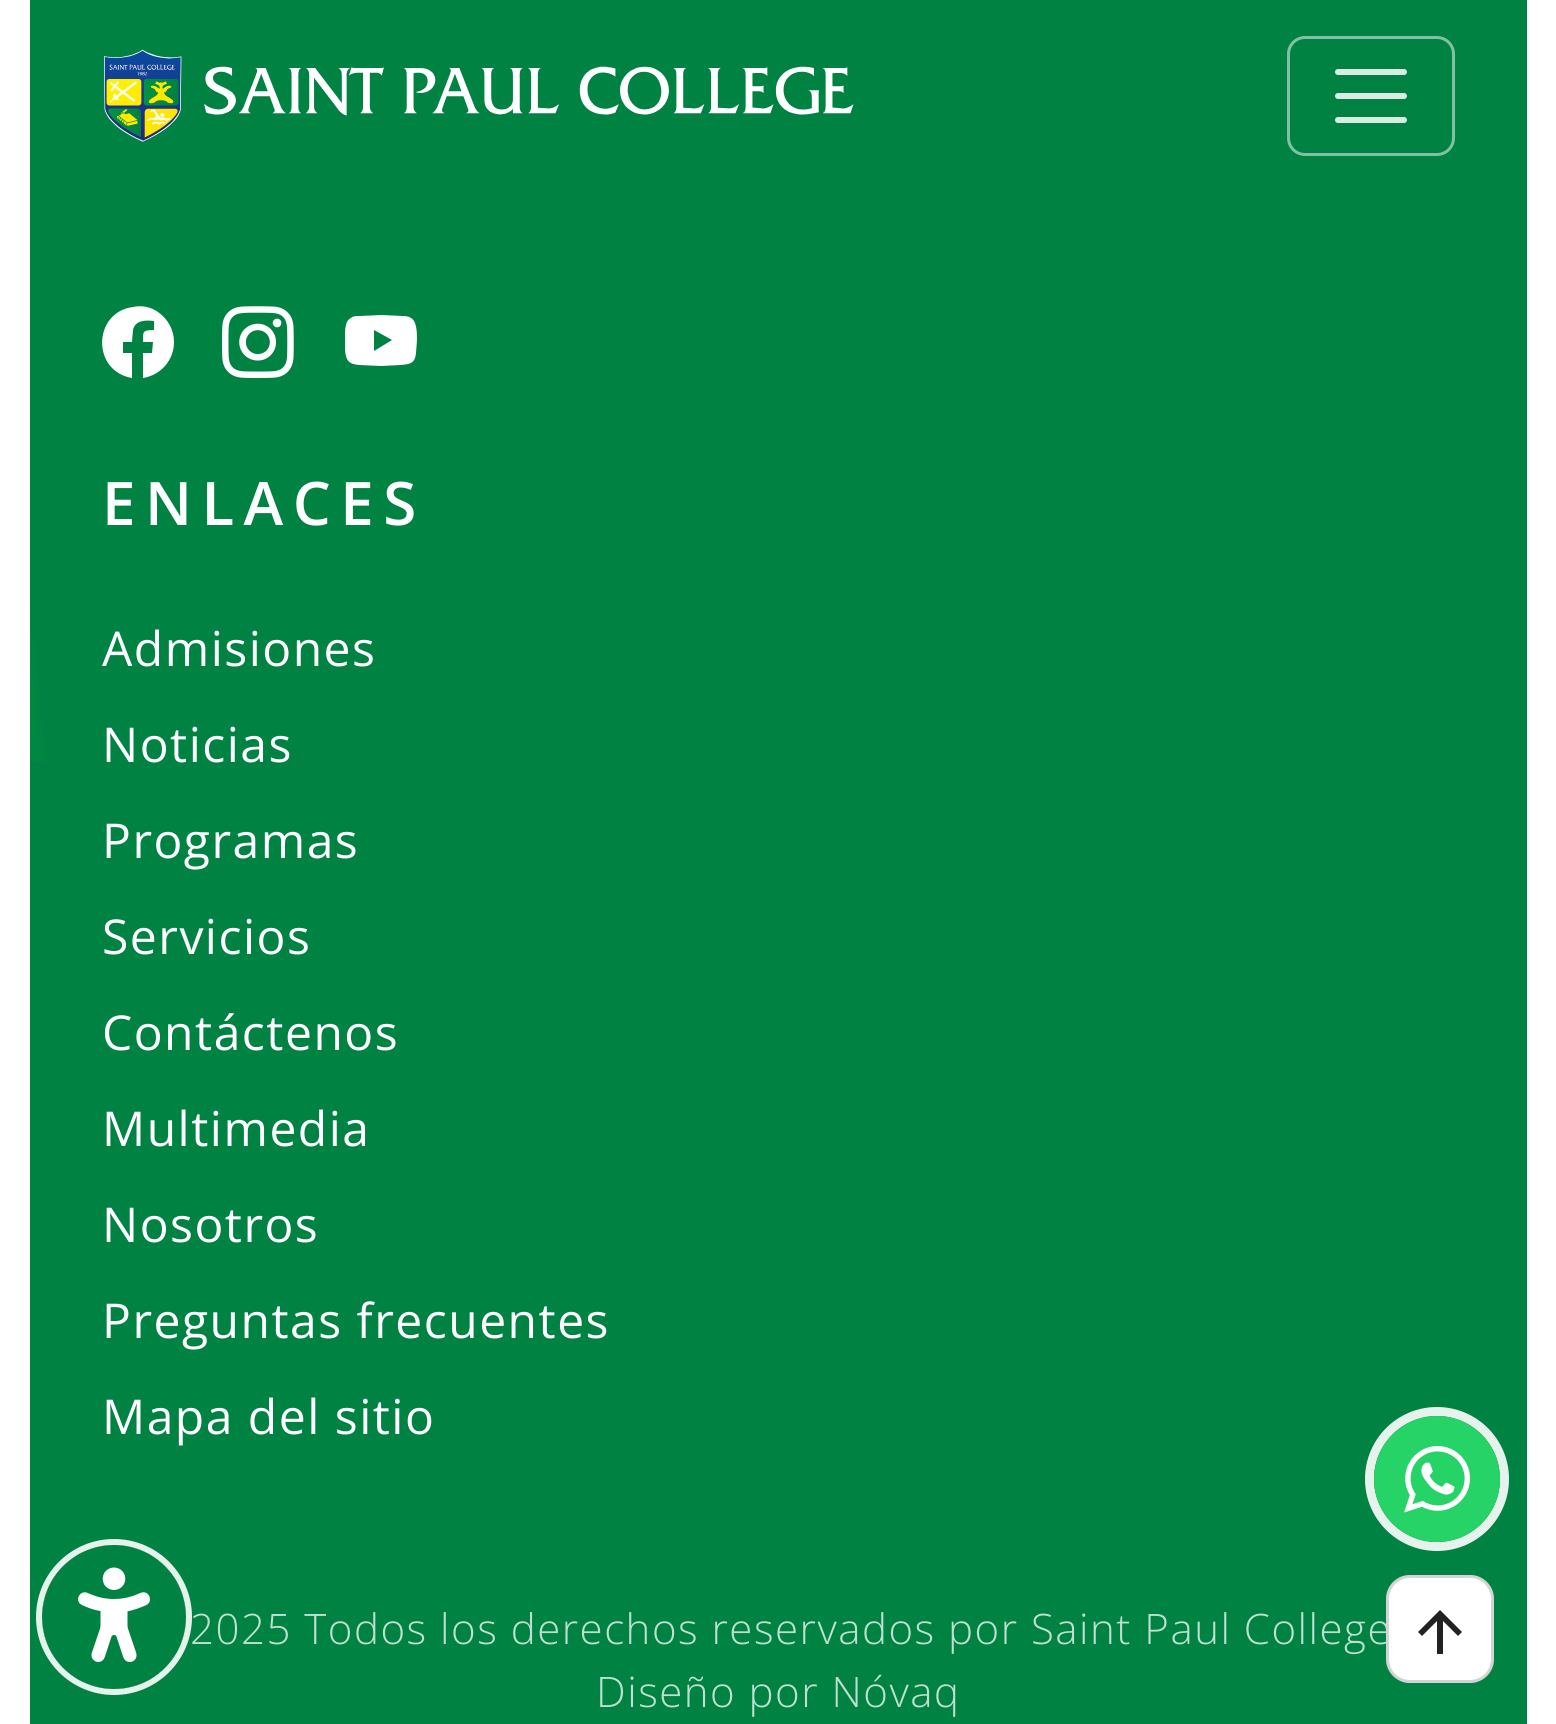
import math
import cairo

surface = cairo.ImageSurface(cairo.FORMAT_RGB24, 1556, 1724)
ctx = cairo.Context(surface)
options = cairo.FontOptions()
options.set_hint_metrics(cairo.HINT_METRICS_OFF)
options.set_hint_style(cairo.HINT_STYLE_NONE)
ctx.set_font_options(options)
ctx.set_miter_limit(4)


def set_color(code):
    ctx.set_source_rgb(*(v / 255 for v in bytes.fromhex(code[-6:])))


def draw_spaced(x, y, s, letter, word):
    ctx.move_to(x, y)
    for ch in s:
        ctx.show_text(ch)
        ctx.rel_move_to(letter + word * (ch == ' '), 0)


def fill_rect(x, y, w, h, color):
    set_color(color)
    ctx.rectangle(x, y, w, h)
    ctx.fill()


def rounded_rect(x, y, w, h, r):
    ctx.new_sub_path()
    for i, (u, v) in enumerate([(x + w - r, y + h - r), (x + r, y + h - r), (x + r, y + r), (x + w - r, y + r)]):
        ctx.arc(u, v, r, i * math.pi / 2, (i + 1) * math.pi / 2)
    ctx.close_path()


def draw_image(path, x, y, w, h):
    ctx.save()
    ctx.set_source_surface(cairo.ImageSurface.create_from_png(path), x, y)
    ctx.rectangle(x, y, w, h)
    ctx.fill()
    ctx.restore()


set_color("#ffffff")
ctx.paint()
draw_image("assets/img2.png", 30, 144, 1497, 618)
set_color("#008342")
ctx.new_path()
ctx.move_to(30, 0)
ctx.line_to(1527, 0)
ctx.line_to(1527, 144)
ctx.curve_to(1527, 170.5, 1505.5, 192, 1479, 192)
ctx.line_to(78, 192)
ctx.curve_to(51.5, 192, 30, 170.5, 30, 144)
ctx.close_path()
ctx.fill()
draw_image("assets/img1.png", 104, 49, 750, 93)
rounded_rect(1288.5, 37.5, 165, 117, 16.5)
set_color("#80c1a1")
ctx.set_line_width(3)
ctx.stroke()
ctx.new_path()
ctx.move_to(1338, 72)
ctx.line_to(1404, 72)
ctx.move_to(1338, 96)
ctx.line_to(1404, 96)
ctx.move_to(1338, 120)
ctx.line_to(1404, 120)
set_color("#d9ece3")
ctx.set_line_width(6)
ctx.set_line_cap(cairo.LINE_CAP_ROUND)
ctx.stroke()
fill_rect(30, 762, 1497, 962, "#008342")
set_color("#ffffff")
ctx.new_path()
ctx.move_to(174, 342)
ctx.curve_to(174, 330, 168, 319, 158, 312)
ctx.curve_to(151, 307, 142, 305, 133, 307)
ctx.curve_to(93, 312, 91, 371, 132, 378)
ctx.line_to(132, 353)
ctx.line_to(123, 353)
ctx.line_to(123, 342)
ctx.line_to(132, 342)
ctx.line_to(133, 330)
ctx.curve_to(135, 320, 146, 320, 154, 321)
ctx.line_to(154, 330)
ctx.curve_to(142, 330, 143, 332, 143, 342)
ctx.line_to(153, 342)
ctx.line_to(152, 353)
ctx.line_to(143, 353)
ctx.line_to(143, 378)
ctx.curve_to(161, 375, 174, 360, 174, 342)
ctx.close_path()
ctx.fill()
draw_image("assets/img3.png", 222, 306, 72, 72)
ctx.new_path()
ctx.move_to(381, 315)
ctx.line_to(402, 316)
ctx.curve_to(405, 316, 408, 316, 411, 318)
ctx.curve_to(417, 321, 417, 334, 417, 340)
ctx.line_to(416, 353)
ctx.curve_to(415, 363, 411, 364, 401, 365)
ctx.line_to(381, 366)
ctx.line_to(359, 365)
ctx.curve_to(348, 364, 346, 360, 345, 350)
ctx.line_to(345, 340)
ctx.curve_to(345, 334, 344, 321, 351, 318)
ctx.curve_to(353, 316, 356, 316, 359, 316)
ctx.close_path()
ctx.move_to(374, 330)
ctx.line_to(374, 351)
ctx.line_to(392, 340)
ctx.close_path()
ctx.fill()
ctx.select_font_face("Open Sans SemiBold")
ctx.set_font_size(60)
draw_spaced(102, 525, "ENLACES", 9.5, 0)
ctx.select_font_face("Open Sans")
ctx.set_font_size(48)
draw_spaced(102, 666, "Admisiones", 1.5, 0)
draw_spaced(102, 762, "Noticias", 1.5, 0)
draw_spaced(102, 858, "Programas", 1.5, 0)
draw_spaced(102, 954, "Servicios", 1.5, 0)
draw_spaced(102, 1050, "Contáctenos", 1.5, 0)
draw_spaced(102, 1146, "Multimedia", 1.5, 0)
draw_spaced(102, 1242, "Nosotros", 1.5, 0)
draw_spaced(102, 1338, "Preguntas frecuentes", 1.5, 0)
draw_spaced(102, 1434, "Mapa del sitio", 1.5, 0)
ctx.select_font_face("Open Sans Light")
ctx.set_font_size(42)
set_color("#bfe0d0")
draw_spaced(190, 1644, "2025 Todos los derechos reservados por Saint Paul College", 1.5, 0)
draw_spaced(596, 1707, "Diseño por Nóvaq", 1.5, 0)
ctx.new_path()
ctx.arc(1437, 1479, 67.5, 0, 2 * math.pi)
set_color("#e6f3ec")
ctx.set_line_width(9)
ctx.set_line_cap(cairo.LINE_CAP_BUTT)
ctx.stroke()
set_color("#25d366")
ctx.arc(1437, 1479, 63, 0, 2 * math.pi)
ctx.fill()
draw_image("assets/img4.png", 1404, 1446, 66, 67)
ctx.arc(114, 1617, 75, 0, 2 * math.pi)
ctx.set_source_rgba(1, 1, 1, 0.9)
ctx.set_line_width(6)
ctx.stroke()
set_color("#ffffff")
ctx.arc(114, 1617, 72, 0, 2 * math.pi)
ctx.fill()
draw_image("assets/img5.png", 42, 1545, 144, 144)
rounded_rect(1386, 1575, 108, 108, 24)
ctx.fill()
rounded_rect(1387.5, 1576.5, 105, 105, 22.5)
ctx.set_source_rgba(0.157, 0.157, 0.157, 0.2)
ctx.set_line_width(3)
ctx.stroke()
set_color("#222222")
ctx.new_path()
ctx.move_to(1437, 1654)
ctx.line_to(1437, 1621)
ctx.line_to(1422, 1636)
ctx.line_to(1418, 1632)
ctx.line_to(1440, 1610)
ctx.line_to(1462, 1632)
ctx.line_to(1458, 1636)
ctx.line_to(1443, 1621)
ctx.line_to(1443, 1654)
ctx.close_path()
ctx.fill()
surface.write_to_png("output.png")
